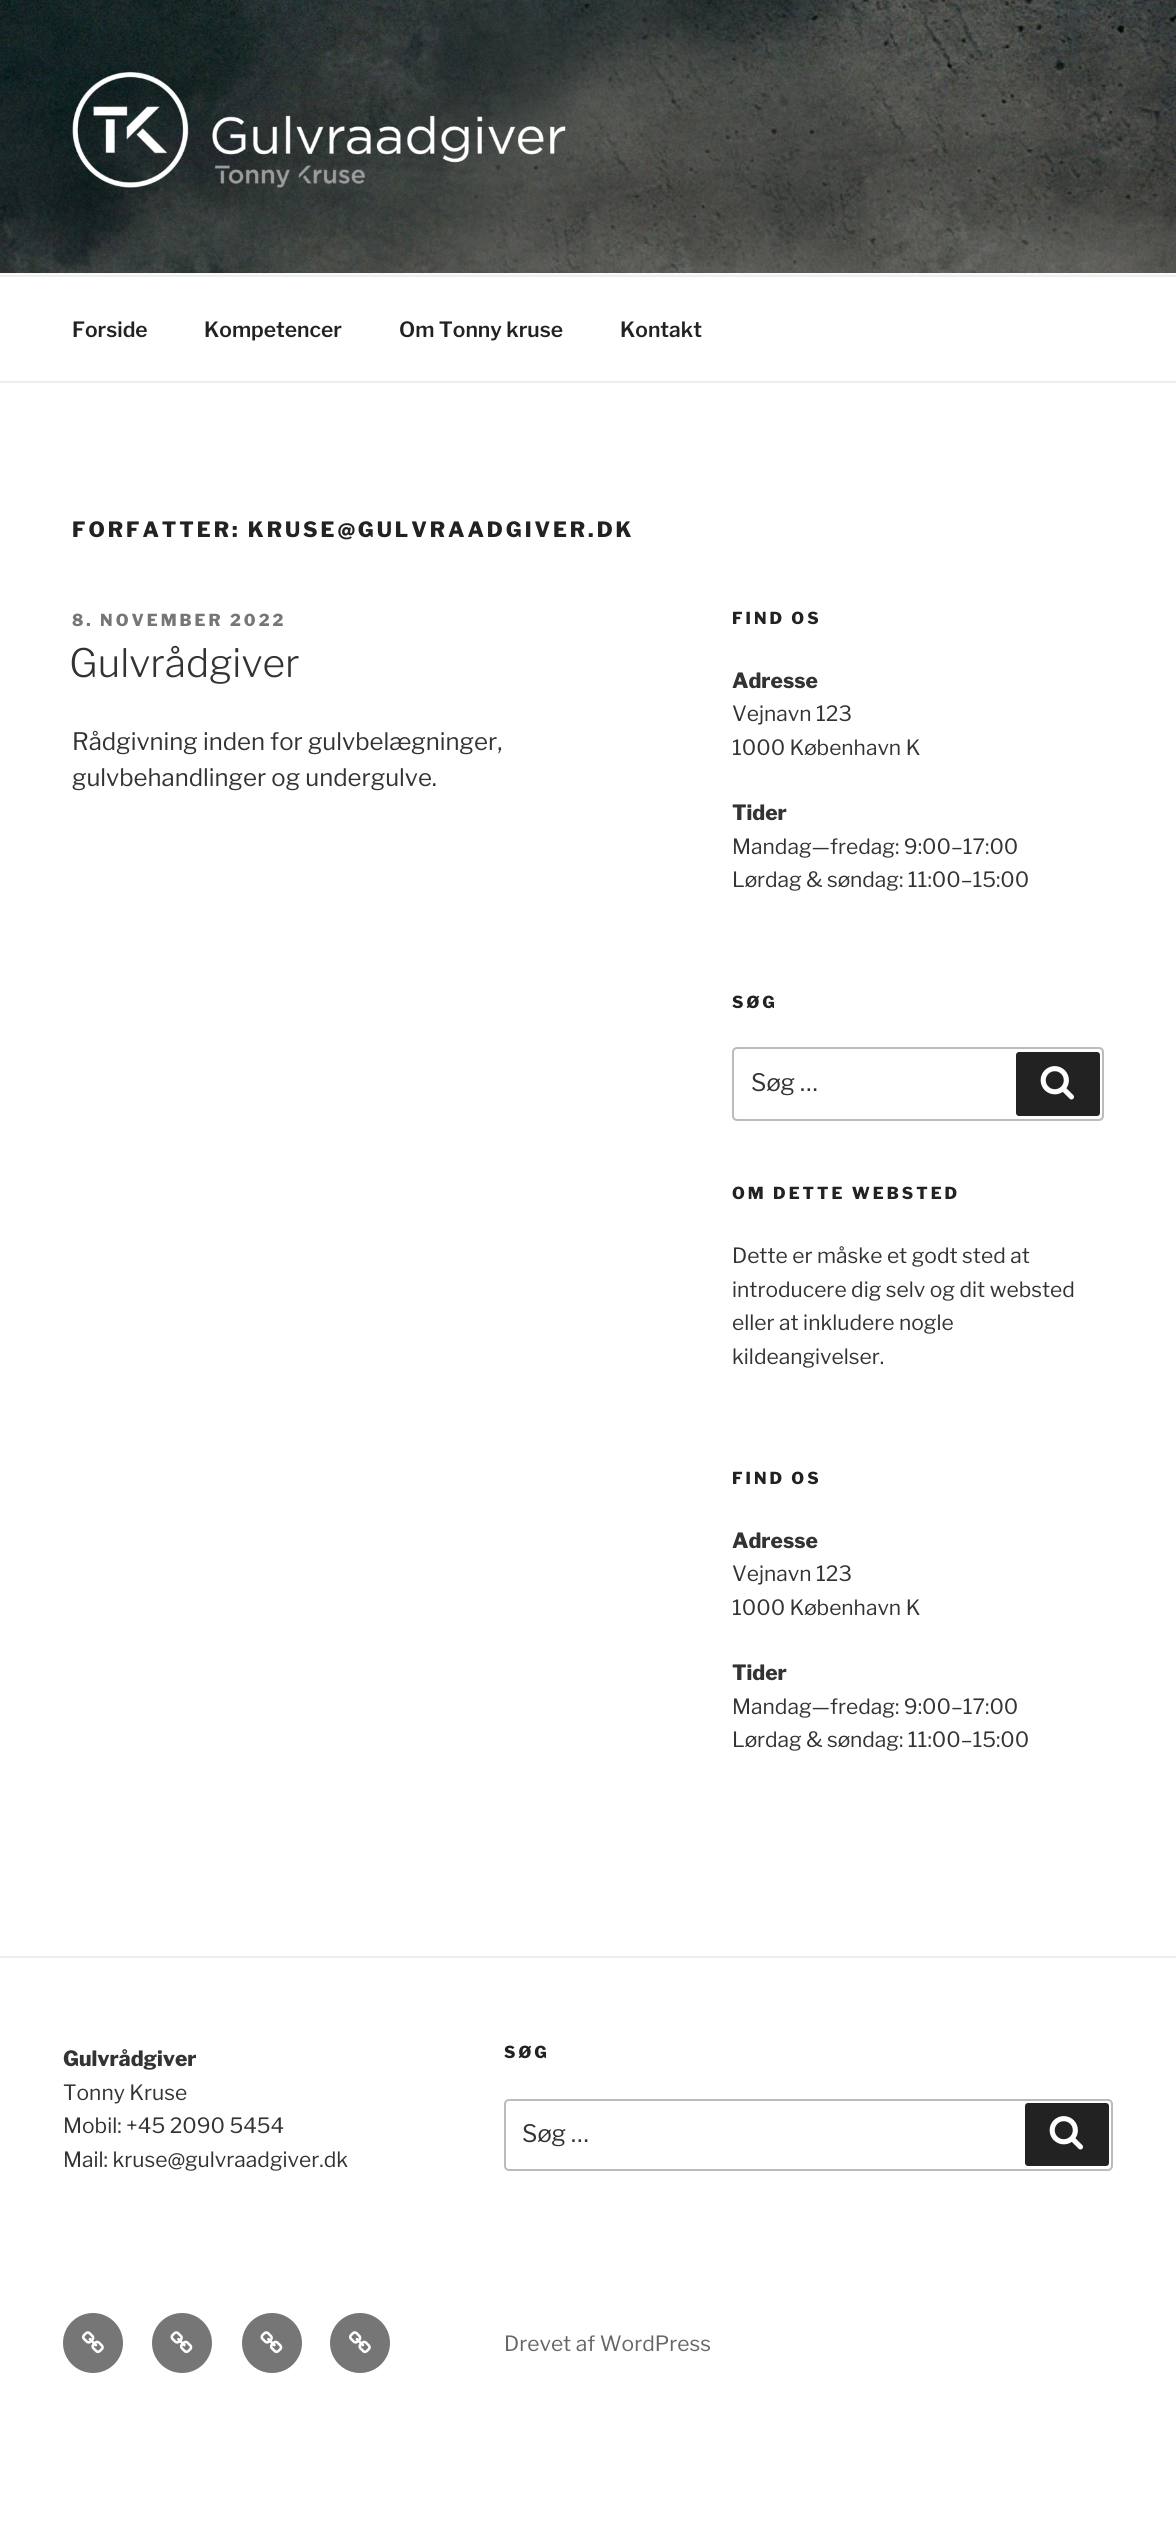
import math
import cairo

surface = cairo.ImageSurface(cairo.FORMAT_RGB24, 1176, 2542)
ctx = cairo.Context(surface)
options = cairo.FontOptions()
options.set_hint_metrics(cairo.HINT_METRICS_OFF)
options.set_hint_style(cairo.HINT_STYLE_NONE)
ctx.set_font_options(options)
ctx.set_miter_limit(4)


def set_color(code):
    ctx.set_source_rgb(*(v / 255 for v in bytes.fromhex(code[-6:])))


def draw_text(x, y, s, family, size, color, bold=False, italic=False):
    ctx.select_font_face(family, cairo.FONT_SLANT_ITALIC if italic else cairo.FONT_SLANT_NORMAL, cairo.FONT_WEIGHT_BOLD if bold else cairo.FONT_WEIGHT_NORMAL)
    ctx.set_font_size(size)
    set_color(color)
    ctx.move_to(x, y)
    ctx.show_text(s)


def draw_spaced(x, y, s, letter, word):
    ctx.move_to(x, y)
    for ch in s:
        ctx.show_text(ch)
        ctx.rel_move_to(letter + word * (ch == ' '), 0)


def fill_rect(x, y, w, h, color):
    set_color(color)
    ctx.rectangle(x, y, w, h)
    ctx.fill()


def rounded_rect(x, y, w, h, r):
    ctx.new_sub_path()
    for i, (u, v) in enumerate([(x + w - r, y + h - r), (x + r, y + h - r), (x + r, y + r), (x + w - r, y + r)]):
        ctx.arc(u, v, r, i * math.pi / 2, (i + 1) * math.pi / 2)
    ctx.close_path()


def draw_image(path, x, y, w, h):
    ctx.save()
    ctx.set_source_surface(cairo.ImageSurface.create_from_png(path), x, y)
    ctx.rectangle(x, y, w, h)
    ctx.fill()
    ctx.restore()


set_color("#ffffff")
ctx.paint()
fill_rect(0, 273, 1176, 2, "#fafafa")
draw_image("assets/img1.png", 0, 0, 1176, 273)
draw_image("assets/img2.png", 72, 72, 494, 120)
fill_rect(0, 275, 1176, 2, "#eeeeee")
fill_rect(0, 381, 1176, 2, "#eeeeee")
draw_text(72, 337, "Forside", "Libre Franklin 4 Thin", 21, "#222222")
draw_text(204, 337, "Kompetencer", "Libre Franklin 4 Thin", 21, "#222222")
draw_text(399, 337, "Om Tonny kruse", "Libre Franklin 4 Thin", 21, "#222222")
draw_text(620, 337, "Kontakt", "Libre Franklin 4 Thin", 21, "#222222")
ctx.select_font_face("Libre Franklin Thin")
draw_spaced(72, 537, "FORFATTER: KRUSE@GULVRAADGIVER.DK", 2.95, 0)
ctx.set_font_size(16.5)
set_color("#767676")
draw_spaced(72, 626, "8. NOVEMBER 2022", 3, 0)
draw_text(69, 677, "Gulvrådgiver", "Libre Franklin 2 Thin", 39, "#333333")
draw_text(72, 750, "Rådgivning inden for gulvbelægninger,", "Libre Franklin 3 Thin", 24, "#333333")
draw_text(72, 786, "gulvbehandlinger og undergulve.", "Libre Franklin 3 Thin", 24, "#333333")
ctx.select_font_face("Libre Franklin Thin")
ctx.set_font_size(16.5)
set_color("#222222")
draw_spaced(732, 624, "FIND OS", 3, 0)
draw_text(732, 688, "Adresse", "Libre Franklin Thin", 21, "#333333")
draw_text(732, 721, "Vejnavn 123", "Libre Franklin 3 Thin", 21, "#333333")
draw_text(732, 755, "1000 København K", "Libre Franklin 3 Thin", 21, "#333333")
draw_text(732, 820, "Tider", "Libre Franklin Thin", 21, "#333333")
draw_text(732, 854, "Mandag—fredag: 9:00–17:00", "Libre Franklin 3 Thin", 21, "#333333")
draw_text(732, 887, "Lørdag & søndag: 11:00–15:00", "Libre Franklin 3 Thin", 21, "#333333")
ctx.select_font_face("Libre Franklin Thin")
ctx.set_font_size(16.5)
set_color("#222222")
draw_spaced(732, 1008, "SØG", 3, 0)
rounded_rect(733, 1048, 370, 72, 4)
set_color("#bbbbbb")
ctx.stroke()
draw_text(751, 1091, "Søg …", "Libre Franklin 3 Thin", 24, "#333333")
set_color("#222222")
rounded_rect(1016, 1052, 84, 64, 3)
ctx.fill()
draw_image("assets/img3.png", 1040, 1066, 34, 34)
ctx.select_font_face("Libre Franklin Thin")
ctx.set_font_size(16.5)
draw_spaced(732, 1199, "OM DETTE WEBSTED", 3, 0)
draw_text(732, 1263, "Dette er måske et godt sted at", "Libre Franklin 3 Thin", 21, "#333333")
draw_text(732, 1297, "introducere dig selv og dit websted", "Libre Franklin 3 Thin", 21, "#333333")
draw_text(732, 1330, "eller at inkludere nogle", "Libre Franklin 3 Thin", 21, "#333333")
draw_text(732, 1364, "kildeangivelser.", "Libre Franklin 3 Thin", 21, "#333333")
ctx.select_font_face("Libre Franklin Thin")
ctx.set_font_size(16.5)
set_color("#222222")
draw_spaced(732, 1484, "FIND OS", 3, 0)
draw_text(732, 1548, "Adresse", "Libre Franklin Thin", 21, "#333333")
draw_text(732, 1581, "Vejnavn 123", "Libre Franklin 3 Thin", 21, "#333333")
draw_text(732, 1615, "1000 København K", "Libre Franklin 3 Thin", 21, "#333333")
draw_text(732, 1680, "Tider", "Libre Franklin Thin", 21, "#333333")
draw_text(732, 1714, "Mandag—fredag: 9:00–17:00", "Libre Franklin 3 Thin", 21, "#333333")
draw_text(732, 1747, "Lørdag & søndag: 11:00–15:00", "Libre Franklin 3 Thin", 21, "#333333")
fill_rect(0, 1956, 1176, 2, "#eeeeee")
draw_text(63, 2066, "Gulvrådgiver", "Libre Franklin Thin", 21, "#333333")
draw_text(63, 2100, "Tonny Kruse", "Libre Franklin 3 Thin", 21, "#333333")
draw_text(63, 2133, "Mobil: +45 2090 5454", "Libre Franklin 3 Thin", 21, "#333333")
draw_text(63, 2167, "Mail: kruse@gulvraadgiver.dk", "Libre Franklin 3 Thin", 21, "#333333")
ctx.select_font_face("Libre Franklin Thin")
ctx.set_font_size(16.5)
set_color("#222222")
draw_spaced(504, 2058, "SØG", 3, 0)
rounded_rect(505, 2100, 607, 70, 4)
set_color("#bbbbbb")
ctx.stroke()
draw_text(522, 2142, "Søg …", "Libre Franklin 3 Thin", 24, "#333333")
set_color("#222222")
rounded_rect(1025, 2103, 84, 63, 3)
ctx.fill()
draw_image("assets/img3.png", 1049, 2116, 34, 34)
set_color("#767676")
ctx.arc(93, 2343, 30, 0, 2 * math.pi)
ctx.fill()
draw_image("assets/img4.png", 82, 2331, 22, 22)
ctx.arc(182, 2343, 30, 0, 2 * math.pi)
ctx.fill()
draw_image("assets/img5.png", 170, 2331, 23, 23)
ctx.arc(272, 2343, 30, 0, 2 * math.pi)
ctx.fill()
draw_image("assets/img5.png", 260, 2331, 23, 23)
ctx.arc(360, 2343, 30, 0, 2 * math.pi)
ctx.fill()
draw_image("assets/img4.png", 349, 2331, 22, 22)
draw_text(504, 2351, "Drevet af WordPress", "Libre Franklin 3 Thin", 21, "#666666")
surface.write_to_png("output.png")
